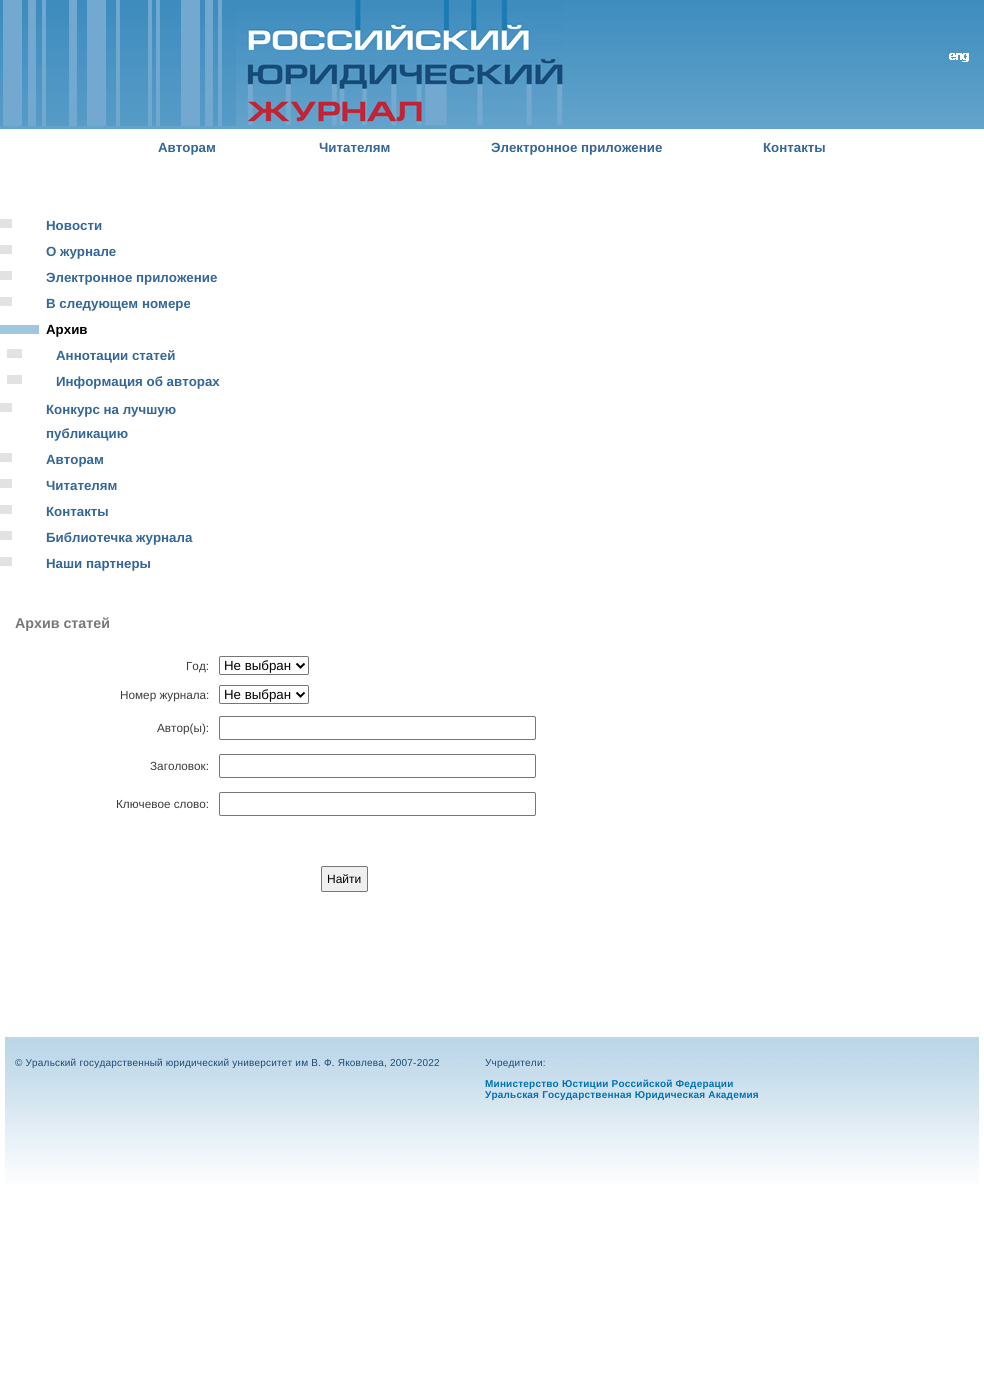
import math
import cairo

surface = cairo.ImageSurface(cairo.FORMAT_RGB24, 984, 1373)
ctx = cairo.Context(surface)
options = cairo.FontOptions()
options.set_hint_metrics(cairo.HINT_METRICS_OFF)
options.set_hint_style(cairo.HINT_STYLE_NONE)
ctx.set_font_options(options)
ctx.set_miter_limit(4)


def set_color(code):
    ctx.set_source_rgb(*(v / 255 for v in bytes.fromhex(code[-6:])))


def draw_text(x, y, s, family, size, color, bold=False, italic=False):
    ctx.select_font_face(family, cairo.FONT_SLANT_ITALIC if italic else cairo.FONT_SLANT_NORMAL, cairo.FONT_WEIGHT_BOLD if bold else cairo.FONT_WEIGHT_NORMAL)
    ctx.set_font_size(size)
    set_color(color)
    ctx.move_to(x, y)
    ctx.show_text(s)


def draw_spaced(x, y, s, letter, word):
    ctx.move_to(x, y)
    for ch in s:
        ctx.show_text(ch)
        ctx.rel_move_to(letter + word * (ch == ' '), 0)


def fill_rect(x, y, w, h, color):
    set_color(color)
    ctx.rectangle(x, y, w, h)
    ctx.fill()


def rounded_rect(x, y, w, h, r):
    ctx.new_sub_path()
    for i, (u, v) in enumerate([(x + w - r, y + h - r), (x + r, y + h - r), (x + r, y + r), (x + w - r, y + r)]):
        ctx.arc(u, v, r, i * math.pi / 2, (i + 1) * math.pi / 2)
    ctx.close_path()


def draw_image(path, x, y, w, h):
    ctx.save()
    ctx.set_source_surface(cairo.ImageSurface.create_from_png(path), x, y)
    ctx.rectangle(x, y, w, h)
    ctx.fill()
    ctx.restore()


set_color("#ffffff")
ctx.paint()
gradient = cairo.LinearGradient(492, 0, 492, 129)
gradient.add_color_stop_rgba(0, 0.243, 0.549, 0.745, 1)
gradient.add_color_stop_rgba(1, 0.388, 0.643, 0.796, 1)
ctx.set_source(gradient)
ctx.rectangle(0, 0, 984, 129)
ctx.fill()
draw_image("assets/img1.png", 0, 0, 563, 126)
draw_image("assets/img2.png", 949, 53, 20, 9)
draw_text(158, 152, "Авторам", "Liberation Sans", 13.3, "#336699", bold=True)
draw_text(319, 152, "Читателям", "Liberation Sans", 13.3, "#336699", bold=True)
draw_text(491, 152, "Электронное приложение", "Liberation Sans", 13.3, "#336699", bold=True)
draw_text(763, 152, "Контакты", "Liberation Sans", 13.3, "#336699", bold=True)
fill_rect(0, 219, 12, 9, "#e2e2e2")
draw_text(46, 230, "Новости", "Liberation Sans", 13.3, "#336699", bold=True)
fill_rect(0, 245, 12, 9, "#e2e2e2")
draw_text(46, 256, "О журнале", "Liberation Sans", 13.3, "#336699", bold=True)
fill_rect(0, 271, 12, 9, "#e2e2e2")
draw_text(46, 282, "Электронное приложение", "Liberation Sans", 13.3, "#336699", bold=True)
fill_rect(0, 297, 12, 9, "#e2e2e2")
draw_text(46, 308, "В следующем номере", "Liberation Sans", 13.3, "#336699", bold=True)
fill_rect(0, 325, 39, 9, "#a0c6e2")
draw_text(46, 334, "Архив", "Liberation Sans", 13.3, "#000000", bold=True)
fill_rect(7, 349, 15, 9, "#e2e2e2")
draw_text(56, 360, "Аннотации статей", "Liberation Sans", 13.3, "#336699", bold=True)
fill_rect(7, 375, 15, 9, "#e2e2e2")
draw_text(56, 386, "Информация об авторах", "Liberation Sans", 13.3, "#336699", bold=True)
fill_rect(0, 403, 12, 9, "#e2e2e2")
draw_text(46, 414, "Конкурс на лучшую", "Liberation Sans", 13.3, "#336699", bold=True)
draw_text(46, 438, "публикацию", "Liberation Sans", 13.3, "#336699", bold=True)
fill_rect(0, 453, 12, 9, "#e2e2e2")
draw_text(46, 464, "Авторам", "Liberation Sans", 13.3, "#336699", bold=True)
fill_rect(0, 479, 12, 9, "#e2e2e2")
draw_text(46, 490, "Читателям", "Liberation Sans", 13.3, "#336699", bold=True)
fill_rect(0, 505, 12, 9, "#e2e2e2")
draw_text(46, 516, "Контакты", "Liberation Sans", 13.3, "#336699", bold=True)
fill_rect(0, 531, 12, 9, "#e2e2e2")
draw_text(46, 542, "Библиотечка журнала", "Liberation Sans", 13.3, "#336699", bold=True)
fill_rect(0, 557, 12, 9, "#e2e2e2")
draw_text(46, 568, "Наши партнеры", "Liberation Sans", 13.3, "#336699", bold=True)
draw_text(15, 628, "Архив статей", "Liberation Sans", 14.25, "#777777", bold=True)
draw_text(186, 670, "Год:", "Liberation Sans", 11.75, "#3b3b3b")
rounded_rect(219.5, 656.5, 89, 18, 1.5)
set_color("#767676")
ctx.set_line_width(1)
ctx.stroke()
ctx.new_path()
ctx.move_to(296.5, 663.5)
ctx.line_to(300.5, 667.5)
ctx.line_to(304.5, 663.5)
set_color("#000000")
ctx.set_line_width(2)
ctx.stroke()
draw_text(224, 670, "Не выбран", "Liberation Sans", 13.3, "#000000")
draw_text(120, 699, "Номер журнала:", "Liberation Sans", 11.75, "#3b3b3b")
rounded_rect(219.5, 685.5, 89, 18, 1.5)
set_color("#767676")
ctx.set_line_width(1)
ctx.stroke()
ctx.new_path()
ctx.move_to(296.5, 692.5)
ctx.line_to(300.5, 696.5)
ctx.line_to(304.5, 692.5)
set_color("#000000")
ctx.set_line_width(2)
ctx.stroke()
draw_text(224, 699, "Не выбран", "Liberation Sans", 13.3, "#000000")
draw_text(157, 732, "Автор(ы):", "Liberation Sans", 11.75, "#3b3b3b")
rounded_rect(219.5, 716.5, 316, 23, 1.5)
set_color("#767676")
ctx.set_line_width(1)
ctx.stroke()
draw_text(150, 770, "Заголовок:", "Liberation Sans", 11.75, "#3b3b3b")
rounded_rect(219.5, 754.5, 316, 23, 1.5)
set_color("#767676")
ctx.stroke()
draw_text(116, 808, "Ключевое слово:", "Liberation Sans", 11.75, "#3b3b3b")
rounded_rect(219.5, 792.5, 316, 23, 1.5)
set_color("#767676")
ctx.stroke()
set_color("#efefef")
rounded_rect(321.5, 866.5, 46, 25, 1.5)
ctx.fill_preserve()
set_color("#767676")
ctx.stroke()
draw_text(327, 883, "Найти", "Liberation Sans", 12, "#000000")
draw_image("assets/img3.png", 5, 1037, 974, 147)
ctx.set_font_size(10)
set_color("#174b77")
draw_spaced(15, 1066, "© Уральский государственный юридический университет им В. Ф. Яковлева, 2007-2022", 0.2, 0)
draw_spaced(485, 1066, "Учредители:", 0.2, 0)
ctx.select_font_face("Liberation Sans", cairo.FONT_SLANT_NORMAL, cairo.FONT_WEIGHT_BOLD)
set_color("#0072b6")
draw_spaced(485, 1087, "Министерство Юстиции Российской Федерации", 0.2, 0)
draw_spaced(485, 1098, "Уральская Государственная Юридическая Академия", 0.2, 0)
surface.write_to_png("output.png")
